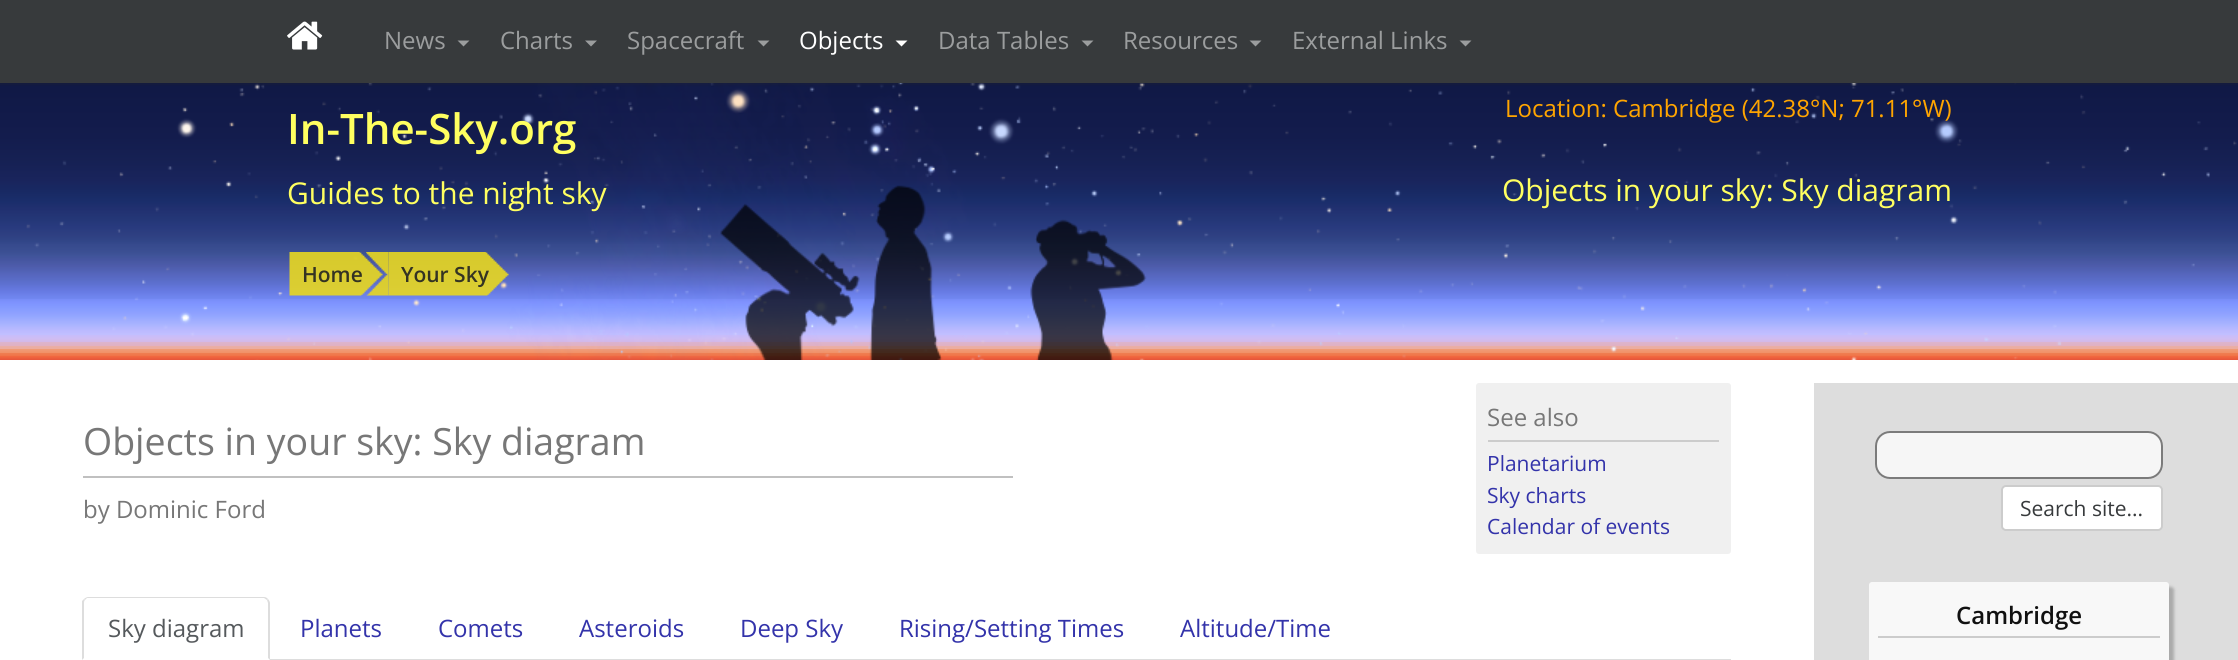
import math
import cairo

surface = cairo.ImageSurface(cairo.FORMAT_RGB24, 2238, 660)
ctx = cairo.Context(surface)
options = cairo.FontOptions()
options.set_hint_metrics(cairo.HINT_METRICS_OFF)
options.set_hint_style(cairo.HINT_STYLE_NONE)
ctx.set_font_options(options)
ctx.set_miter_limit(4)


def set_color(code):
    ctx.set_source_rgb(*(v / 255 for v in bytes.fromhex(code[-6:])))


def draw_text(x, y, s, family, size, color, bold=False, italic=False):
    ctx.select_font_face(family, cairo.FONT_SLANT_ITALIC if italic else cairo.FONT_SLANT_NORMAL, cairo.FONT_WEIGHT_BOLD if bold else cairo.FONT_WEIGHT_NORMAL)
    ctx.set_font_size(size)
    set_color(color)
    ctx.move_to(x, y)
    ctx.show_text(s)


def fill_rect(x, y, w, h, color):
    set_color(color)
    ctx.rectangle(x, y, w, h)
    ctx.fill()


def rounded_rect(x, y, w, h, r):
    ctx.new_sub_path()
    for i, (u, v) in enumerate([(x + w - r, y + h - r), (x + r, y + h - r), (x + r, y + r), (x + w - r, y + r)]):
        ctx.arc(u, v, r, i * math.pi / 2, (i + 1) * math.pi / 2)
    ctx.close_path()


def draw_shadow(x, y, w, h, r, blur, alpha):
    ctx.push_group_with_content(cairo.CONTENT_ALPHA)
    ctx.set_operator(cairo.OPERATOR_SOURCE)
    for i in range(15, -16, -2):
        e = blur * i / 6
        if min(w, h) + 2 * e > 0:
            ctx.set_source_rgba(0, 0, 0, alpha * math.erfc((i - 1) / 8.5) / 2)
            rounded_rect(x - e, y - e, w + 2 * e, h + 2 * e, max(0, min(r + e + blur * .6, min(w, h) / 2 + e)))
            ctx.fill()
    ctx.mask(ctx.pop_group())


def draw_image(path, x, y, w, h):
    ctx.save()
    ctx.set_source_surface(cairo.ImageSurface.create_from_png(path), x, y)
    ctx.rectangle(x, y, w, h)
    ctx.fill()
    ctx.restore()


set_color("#ffffff")
ctx.paint()
fill_rect(0, 0, 2238, 83, "#373a3c")
draw_image("assets/img1.png", 287, 21, 36, 29)
draw_text(384, 49, "News", "Open Sans", 24, "#9b9d9e")
ctx.new_path()
ctx.move_to(457.5, 40.5)
ctx.line_to(469.5, 40.5)
ctx.line_to(463.5, 46.5)
ctx.close_path()
ctx.fill()
draw_text(500, 49, "Charts", "Open Sans", 24, "#9b9d9e")
ctx.new_path()
ctx.move_to(585, 40.5)
ctx.line_to(597, 40.5)
ctx.line_to(591, 46.5)
ctx.close_path()
ctx.fill()
draw_text(627, 49, "Spacecraft", "Open Sans", 24, "#9b9d9e")
ctx.new_path()
ctx.move_to(757.5, 40.5)
ctx.line_to(769.5, 40.5)
ctx.line_to(763.5, 46.5)
ctx.close_path()
ctx.fill()
draw_text(799, 49, "Objects", "Open Sans", 24, "#ffffff")
ctx.new_path()
ctx.move_to(895.5, 40.5)
ctx.line_to(907.5, 40.5)
ctx.line_to(901.5, 46.5)
ctx.close_path()
ctx.fill()
draw_text(938, 49, "Data Tables", "Open Sans", 24, "#9b9d9e")
ctx.new_path()
ctx.move_to(1081.5, 40.5)
ctx.line_to(1093.5, 40.5)
ctx.line_to(1087.5, 46.5)
ctx.close_path()
ctx.fill()
draw_text(1123, 49, "Resources", "Open Sans", 24, "#9b9d9e")
ctx.new_path()
ctx.move_to(1249.5, 40.5)
ctx.line_to(1261.5, 40.5)
ctx.line_to(1255.5, 46.5)
ctx.close_path()
ctx.fill()
draw_text(1292, 49, "External Links", "Open Sans", 24, "#9b9d9e")
ctx.new_path()
ctx.move_to(1459.5, 40.5)
ctx.line_to(1471.5, 40.5)
ctx.line_to(1465.5, 46.5)
ctx.close_path()
ctx.fill()
gradient = cairo.LinearGradient(1119, 0, 1119, 360)
gradient.add_color_stop_rgba(0, 0.063, 0.09, 0.239, 1)
gradient.add_color_stop_rgba(0.25, 0.063, 0.098, 0.275, 1)
gradient.add_color_stop_rgba(0.38, 0.075, 0.11, 0.302, 1)
gradient.add_color_stop_rgba(0.45, 0.086, 0.129, 0.329, 1)
gradient.add_color_stop_rgba(0.5, 0.098, 0.141, 0.361, 1)
gradient.add_color_stop_rgba(0.53, 0.094, 0.161, 0.388, 1)
gradient.add_color_stop_rgba(0.56, 0.102, 0.18, 0.42, 1)
gradient.add_color_stop_rgba(0.58, 0.129, 0.188, 0.439, 1)
gradient.add_color_stop_rgba(0.61, 0.141, 0.216, 0.467, 1)
gradient.add_color_stop_rgba(0.63, 0.157, 0.227, 0.494, 1)
gradient.add_color_stop_rgba(0.65, 0.18, 0.247, 0.506, 1)
gradient.add_color_stop_rgba(0.67, 0.192, 0.271, 0.533, 1)
gradient.add_color_stop_rgba(0.68, 0.212, 0.29, 0.553, 1)
gradient.add_color_stop_rgba(0.7, 0.231, 0.31, 0.576, 1)
gradient.add_color_stop_rgba(0.71, 0.247, 0.329, 0.6, 1)
gradient.add_color_stop_rgba(0.72, 0.271, 0.333, 0.624, 1)
gradient.add_color_stop_rgba(0.73, 0.286, 0.349, 0.647, 1)
gradient.add_color_stop_rgba(0.74, 0.306, 0.361, 0.671, 1)
gradient.add_color_stop_rgba(0.75, 0.314, 0.38, 0.702, 1)
gradient.add_color_stop_rgba(0.76, 0.333, 0.396, 0.733, 1)
gradient.add_color_stop_rgba(0.77, 0.345, 0.412, 0.761, 1)
gradient.add_color_stop_rgba(0.78, 0.353, 0.431, 0.788, 1)
gradient.add_color_stop_rgba(0.79, 0.369, 0.443, 0.82, 1)
gradient.add_color_stop_rgba(0.8, 0.388, 0.463, 0.859, 1)
gradient.add_color_stop_rgba(0.81, 0.404, 0.482, 0.89, 1)
gradient.add_color_stop_rgba(0.82, 0.427, 0.506, 0.918, 1)
gradient.add_color_stop_rgba(0.83, 0.443, 0.533, 0.945, 1)
gradient.add_color_stop_rgba(0.83, 0.463, 0.549, 0.965, 1)
gradient.add_color_stop_rgba(0.84, 0.494, 0.573, 0.996, 1)
gradient.add_color_stop_rgba(0.85, 0.51, 0.596, 1, 1)
gradient.add_color_stop_rgba(0.86, 0.533, 0.616, 1, 1)
gradient.add_color_stop_rgba(0.87, 0.557, 0.631, 1, 1)
gradient.add_color_stop_rgba(0.88, 0.584, 0.659, 1, 1)
gradient.add_color_stop_rgba(0.89, 0.624, 0.678, 1, 1)
gradient.add_color_stop_rgba(0.9, 0.655, 0.702, 1, 1)
gradient.add_color_stop_rgba(0.91, 0.702, 0.718, 1, 1)
gradient.add_color_stop_rgba(0.92, 0.741, 0.733, 1, 1)
gradient.add_color_stop_rgba(0.93, 0.757, 0.749, 1, 1)
gradient.add_color_stop_rgba(0.93, 0.776, 0.741, 0.988, 1)
gradient.add_color_stop_rgba(0.94, 0.812, 0.741, 0.953, 1)
gradient.add_color_stop_rgba(0.95, 0.831, 0.725, 0.906, 1)
gradient.add_color_stop_rgba(0.95, 0.851, 0.718, 0.863, 1)
gradient.add_color_stop_rgba(0.95, 0.863, 0.706, 0.808, 1)
gradient.add_color_stop_rgba(0.96, 0.882, 0.694, 0.765, 1)
gradient.add_color_stop_rgba(0.96, 0.898, 0.686, 0.718, 1)
gradient.add_color_stop_rgba(0.96, 0.914, 0.686, 0.663, 1)
gradient.add_color_stop_rgba(0.97, 0.929, 0.675, 0.612, 1)
gradient.add_color_stop_rgba(0.97, 0.937, 0.655, 0.549, 1)
gradient.add_color_stop_rgba(0.97, 0.941, 0.612, 0.467, 1)
gradient.add_color_stop_rgba(0.98, 0.945, 0.569, 0.408, 1)
gradient.add_color_stop_rgba(0.98, 0.945, 0.533, 0.365, 1)
gradient.add_color_stop_rgba(0.98, 0.937, 0.502, 0.325, 1)
gradient.add_color_stop_rgba(0.99, 0.945, 0.443, 0.275, 1)
gradient.add_color_stop_rgba(0.99, 0.945, 0.404, 0.247, 1)
gradient.add_color_stop_rgba(1, 0.906, 0.333, 0.224, 1)
ctx.set_source(gradient)
ctx.rectangle(0, 83, 2238, 277)
ctx.fill()
draw_image("assets/img2.png", 26, 83, 2211, 277)
gradient = cairo.LinearGradient(1119, 75, 1119, 87)
gradient.add_color_stop_rgba(0, 0.133, 0.133, 0.133, 0.8)
gradient.add_color_stop_rgba(1, 0.133, 0.133, 0.133, 0)
ctx.set_source(gradient)
ctx.rectangle(0, 83, 2238, 4)
ctx.fill()
draw_text(287, 144, "In-The-Sky.org", "Open Sans SemiBold", 42, "#ffff60")
draw_text(287, 204, "Guides to the night sky", "Open Sans", 30, "#ffff60")
draw_text(1505, 117, "Location: Cambridge (42.38°N; 71.11°W)", "Open Sans", 24, "#ffa500")
draw_text(1502, 201, "Objects in your sky: Sky diagram", "Open Sans", 30, "#ffff60")
draw_image("assets/img3.png", 289, 252, 94, 44)
draw_image("assets/img4.png", 366, 252, 23, 44)
draw_image("assets/img5.png", 388, 252, 121, 44)
draw_text(302, 282, "Home", "Open Sans SemiBold", 21, "#343323")
draw_text(401, 282, "Your Sky", "Open Sans SemiBold", 21, "#343323")
draw_image("assets/img6.png", 720, 185, 427, 175)
fill_rect(83, 476, 930, 2, "#c0c0c0")
draw_text(83, 455, "Objects in your sky: Sky diagram", "Open Sans", 37.5, "#777777")
draw_text(83, 518, "by Dominic Ford", "Open Sans", 24, "#777777")
set_color("#f0f0f0")
rounded_rect(1476, 383, 255, 171, 3)
ctx.fill()
fill_rect(1488, 440, 231, 2, "#cccccc")
draw_text(1487, 426, "See also", "Open Sans", 24, "#777777")
draw_text(1487, 471, "Planetarium", "Open Sans", 21, "#3333aa")
draw_text(1487, 503, "Sky charts", "Open Sans", 21, "#3333aa")
draw_text(1487, 534, "Calendar of events", "Open Sans", 21, "#3333aa")
fill_rect(270, 659, 1461, 1, "#dddddd")
ctx.new_path()
ctx.move_to(88, 597)
ctx.curve_to(87, 597, 85, 598, 84, 599)
ctx.line_to(85, 600)
ctx.line_to(87, 598)
ctx.line_to(264, 598)
ctx.line_to(267, 600)
ctx.line_to(268, 599)
ctx.curve_to(267, 598, 266, 597, 264, 597)
ctx.close_path()
ctx.fill()
ctx.new_path()
ctx.move_to(270, 660)
ctx.line_to(270, 603)
ctx.curve_to(270, 602, 269, 600, 268, 599)
ctx.line_to(267, 600)
ctx.line_to(268, 603)
ctx.line_to(268, 658)
ctx.close_path()
ctx.fill()
ctx.new_path()
ctx.move_to(82, 660)
ctx.line_to(82, 601)
ctx.line_to(84, 599)
ctx.line_to(85, 600)
ctx.curve_to(84, 601, 84, 602, 84, 603)
ctx.line_to(84, 658)
ctx.close_path()
ctx.fill()
draw_text(108, 637, "Sky diagram", "Open Sans", 24, "#55595c")
draw_text(300, 637, "Planets", "Open Sans", 24, "#3333aa")
draw_text(438, 637, "Comets", "Open Sans", 24, "#3333aa")
draw_text(579, 637, "Asteroids", "Open Sans", 24, "#3333aa")
draw_text(740, 637, "Deep Sky", "Open Sans", 24, "#3333aa")
draw_text(899, 637, "Rising/Setting Times", "Open Sans", 24, "#3333aa")
draw_text(1180, 637, "Altitude/Time", "Open Sans", 24, "#3333aa")
fill_rect(1814, 383, 424, 277, "#dddddd")
ctx.set_source_rgba(1, 1, 1, 0.75)
rounded_rect(1875, 431, 288, 48, 15)
ctx.fill()
rounded_rect(1876, 432, 286, 46, 14)
ctx.set_source_rgba(0, 0, 0, 0.5)
ctx.stroke()
set_color("#ffffff")
rounded_rect(2002, 486, 160, 44, 4)
ctx.fill_preserve()
set_color("#cccccc")
ctx.stroke()
draw_text(2020, 516, "Search site...", "Open Sans", 21, "#373a3c")
set_color("#aaaaaa")
draw_shadow(1874, 587, 300, 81, 3, 1.5, 1)
set_color("#f8f8f8")
rounded_rect(1869, 582, 300, 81, 3)
ctx.fill()
fill_rect(1878, 636, 282, 2, "#cccccc")
draw_text(1956, 624, "Cambridge", "Open Sans SemiBold", 24, "#111111")
surface.write_to_png("output.png")
